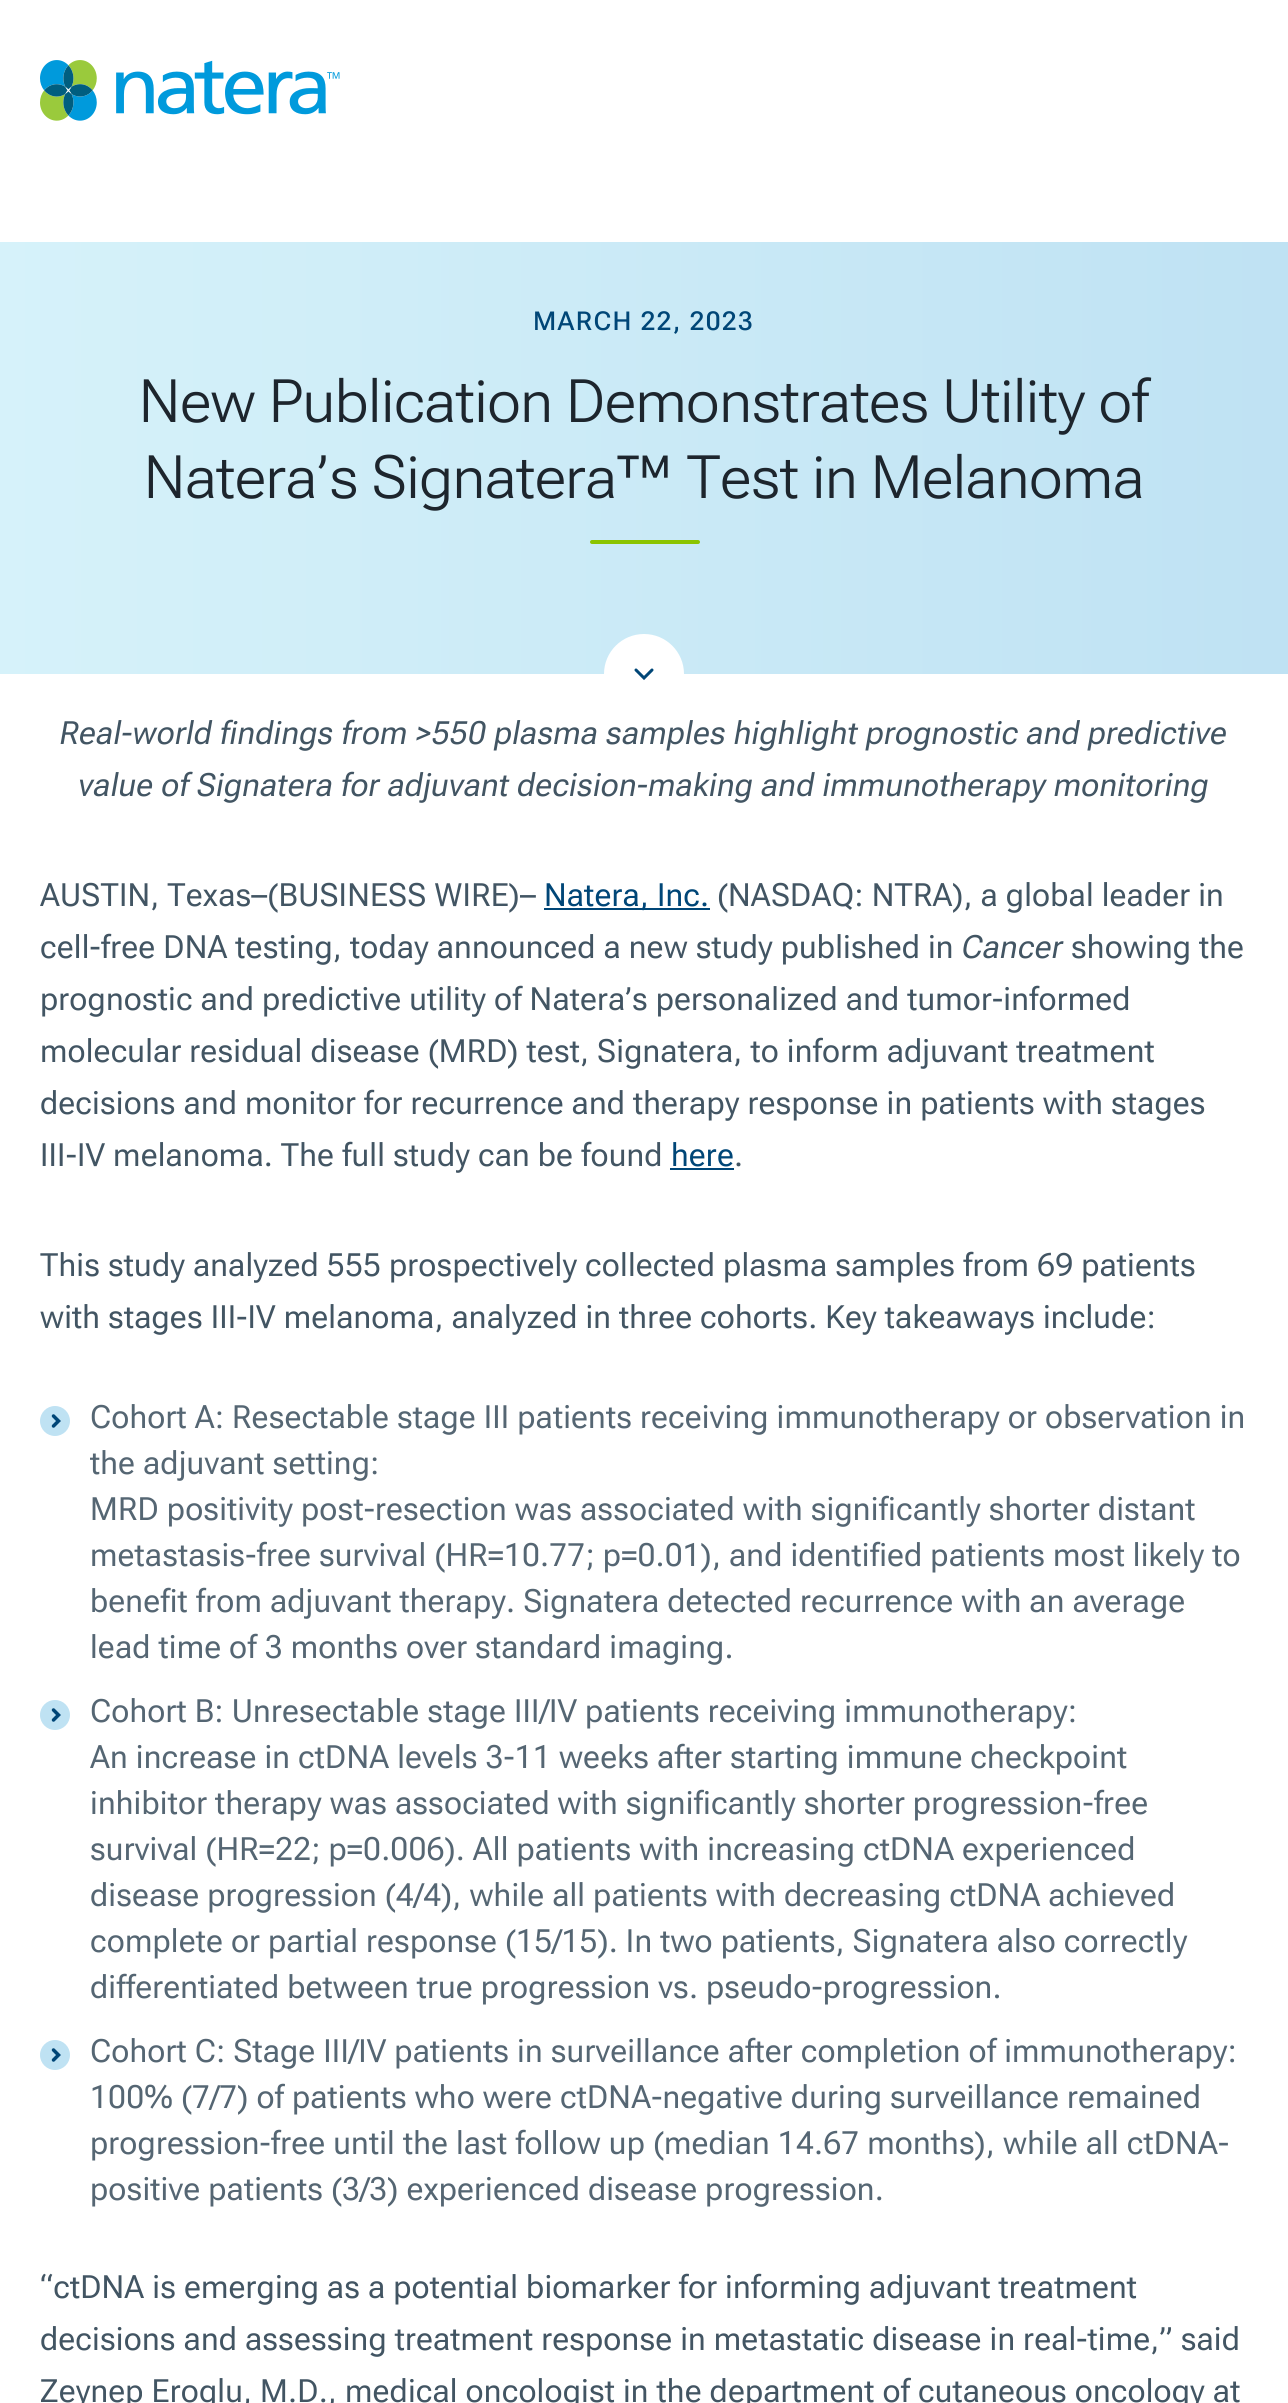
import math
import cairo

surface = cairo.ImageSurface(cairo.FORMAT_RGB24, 1288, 2403)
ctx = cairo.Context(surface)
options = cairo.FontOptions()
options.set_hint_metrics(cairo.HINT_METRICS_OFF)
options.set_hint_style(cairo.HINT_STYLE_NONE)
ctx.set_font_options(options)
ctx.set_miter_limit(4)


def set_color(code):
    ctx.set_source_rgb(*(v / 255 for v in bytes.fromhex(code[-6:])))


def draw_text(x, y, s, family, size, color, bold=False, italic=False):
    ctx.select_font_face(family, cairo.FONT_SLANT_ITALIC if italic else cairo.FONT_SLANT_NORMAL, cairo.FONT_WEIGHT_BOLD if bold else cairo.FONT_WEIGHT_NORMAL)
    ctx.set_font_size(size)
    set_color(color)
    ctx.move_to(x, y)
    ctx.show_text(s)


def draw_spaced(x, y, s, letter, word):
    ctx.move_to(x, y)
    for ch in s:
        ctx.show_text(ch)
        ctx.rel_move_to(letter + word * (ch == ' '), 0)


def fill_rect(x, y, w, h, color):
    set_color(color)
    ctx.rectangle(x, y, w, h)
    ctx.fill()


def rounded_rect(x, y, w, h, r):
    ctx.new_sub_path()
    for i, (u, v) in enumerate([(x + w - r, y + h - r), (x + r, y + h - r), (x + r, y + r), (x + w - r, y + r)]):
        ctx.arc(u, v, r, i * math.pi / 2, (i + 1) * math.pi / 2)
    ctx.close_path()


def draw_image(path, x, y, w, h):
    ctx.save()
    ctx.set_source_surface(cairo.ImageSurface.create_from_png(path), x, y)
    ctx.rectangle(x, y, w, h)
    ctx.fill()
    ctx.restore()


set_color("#ffffff")
ctx.paint()
draw_image("assets/img1.png", 40, 60, 300, 61)
gradient = cairo.LinearGradient(1288, 458, 0, 458)
gradient.add_color_stop_rgba(0, 0.749, 0.886, 0.953, 1)
gradient.add_color_stop_rgba(1, 0.839, 0.949, 0.98, 1)
ctx.set_source(gradient)
ctx.rectangle(0, 242, 1288, 432)
ctx.fill()
ctx.select_font_face("Roboto Flex Medium", cairo.FONT_SLANT_ITALIC)
ctx.set_font_size(26)
set_color("#004677")
draw_spaced(533, 330, "MARCH 22, 2023", 1.4, 0)
draw_text(139, 422, "New Publication Demonstrates Utility of", "Roboto Flex Light", 60, "#1d252d", italic=True)
draw_text(144, 498, "Natera’s Signatera™ Test in Melanoma", "Roboto Flex Light", 60, "#1d252d", italic=True)
set_color("#8bc400")
rounded_rect(590, 540, 110, 4, 2)
ctx.fill()
set_color("#ffffff")
ctx.arc(644, 674, 40, 0, 2 * math.pi)
ctx.fill()
ctx.new_path()
ctx.move_to(636, 670)
ctx.line_to(644, 678)
ctx.line_to(652, 670)
set_color("#004677")
ctx.set_line_width(3)
ctx.set_line_cap(cairo.LINE_CAP_ROUND)
ctx.stroke()
ctx.select_font_face("Roboto Flex", cairo.FONT_SLANT_ITALIC)
ctx.set_font_size(32)
set_color("#425563")
draw_spaced(60, 744, "Real-world findings from >550 plasma samples highlight prognostic and predictive", 0.2, 0)
draw_spaced(79, 796, "value of Signatera for adjuvant decision-making and immunotherapy monitoring", 0.2, 0)
ctx.select_font_face("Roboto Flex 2", cairo.FONT_SLANT_ITALIC)
draw_spaced(40, 906, "AUSTIN, Texas–(BUSINESS WIRE)–", 0.2, 0)
fill_rect(544, 908, 166, 2, "#004677")
draw_spaced(544, 906, "Natera, Inc.", 0.2, 0)
set_color("#425563")
draw_spaced(717, 906, "(NASDAQ: NTRA), a global leader in", 0.2, 0)
draw_spaced(40, 958, "cell-free DNA testing, today announced a new study published in", 0.2, 0)
ctx.select_font_face("Roboto Flex", cairo.FONT_SLANT_ITALIC)
draw_spaced(962, 958, "Cancer", 0.2, 0)
ctx.select_font_face("Roboto Flex 2", cairo.FONT_SLANT_ITALIC)
draw_spaced(1071, 958, "showing the", 0.2, 0)
draw_spaced(40, 1010, "prognostic and predictive utility of Natera’s personalized and tumor-informed", 0.2, 0)
draw_spaced(40, 1062, "molecular residual disease (MRD) test, Signatera, to inform adjuvant treatment", 0.2, 0)
draw_spaced(40, 1114, "decisions and monitor for recurrence and therapy response in patients with stages", 0.2, 0)
draw_spaced(40, 1166, "III-IV melanoma. The full study can be found", 0.2, 0)
set_color("#004677")
draw_spaced(671, 1166, "here", 0.2, 0)
fill_rect(670, 1168, 64, 2, "#004677")
set_color("#425563")
draw_spaced(734, 1166, ".", 0.2, 0)
draw_spaced(40, 1276, "This study analyzed 555 prospectively collected plasma samples from 69 patients", 0.2, 0)
draw_spaced(40, 1328, "with stages III-IV melanoma, analyzed in three cohorts. Key takeaways include:", 0.2, 0)
set_color("#bfe2f3")
ctx.new_path()
ctx.arc(55, 1421, 15, 0, 2 * math.pi)
ctx.fill()
ctx.new_path()
ctx.move_to(53.5, 1426)
ctx.line_to(58.5, 1421)
ctx.line_to(53.5, 1416)
set_color("#004677")
ctx.set_line_width(3.5)
ctx.stroke()
set_color("#556673")
draw_spaced(90, 1428, "Cohort A: Resectable stage III patients receiving immunotherapy or observation in", 0.2, 0)
draw_spaced(90, 1474, "the adjuvant setting:", 0.2, 0)
draw_spaced(90, 1520, "MRD positivity post-resection was associated with significantly shorter distant", 0.2, 0)
draw_spaced(90, 1566, "metastasis-free survival (HR=10.77; p=0.01), and identified patients most likely to", 0.2, 0)
draw_spaced(90, 1612, "benefit from adjuvant therapy. Signatera detected recurrence with an average", 0.2, 0)
draw_spaced(90, 1658, "lead time of 3 months over standard imaging.", 0.2, 0)
set_color("#bfe2f3")
ctx.new_path()
ctx.arc(55, 1715, 15, 0, 2 * math.pi)
ctx.fill()
ctx.new_path()
ctx.move_to(53.5, 1720)
ctx.line_to(58.5, 1715)
ctx.line_to(53.5, 1710)
set_color("#004677")
ctx.stroke()
set_color("#556673")
draw_spaced(90, 1722, "Cohort B: Unresectable stage III/IV patients receiving immunotherapy:", 0.2, 0)
draw_spaced(90, 1768, "An increase in ctDNA levels 3-11 weeks after starting immune checkpoint", 0.2, 0)
draw_spaced(90, 1814, "inhibitor therapy was associated with significantly shorter progression-free", 0.2, 0)
draw_spaced(90, 1860, "survival (HR=22; p=0.006). All patients with increasing ctDNA experienced", 0.2, 0)
draw_spaced(90, 1906, "disease progression (4/4), while all patients with decreasing ctDNA achieved", 0.2, 0)
draw_spaced(90, 1952, "complete or partial response (15/15). In two patients, Signatera also correctly", 0.2, 0)
draw_spaced(90, 1998, "differentiated between true progression vs. pseudo-progression.", 0.2, 0)
set_color("#bfe2f3")
ctx.new_path()
ctx.arc(55, 2055, 15, 0, 2 * math.pi)
ctx.fill()
ctx.new_path()
ctx.move_to(53.5, 2060)
ctx.line_to(58.5, 2055)
ctx.line_to(53.5, 2050)
set_color("#004677")
ctx.stroke()
set_color("#556673")
draw_spaced(90, 2062, "Cohort C: Stage III/IV patients in surveillance after completion of immunotherapy:", 0.2, 0)
draw_spaced(90, 2108, "100% (7/7) of patients who were ctDNA-negative during surveillance remained", 0.2, 0)
draw_spaced(90, 2154, "progression-free until the last follow up (median 14.67 months), while all ctDNA-", 0.2, 0)
draw_spaced(90, 2200, "positive patients (3/3) experienced disease progression.", 0.2, 0)
set_color("#425563")
draw_spaced(40, 2298, "“ctDNA is emerging as a potential biomarker for informing adjuvant treatment", 0.2, 0)
draw_spaced(40, 2350, "decisions and assessing treatment response in metastatic disease in real-time,” said", 0.2, 0)
draw_spaced(40, 2402, "Zeynep Eroglu, M.D., medical oncologist in the department of cutaneous oncology at", 0.2, 0)
surface.write_to_png("output.png")
